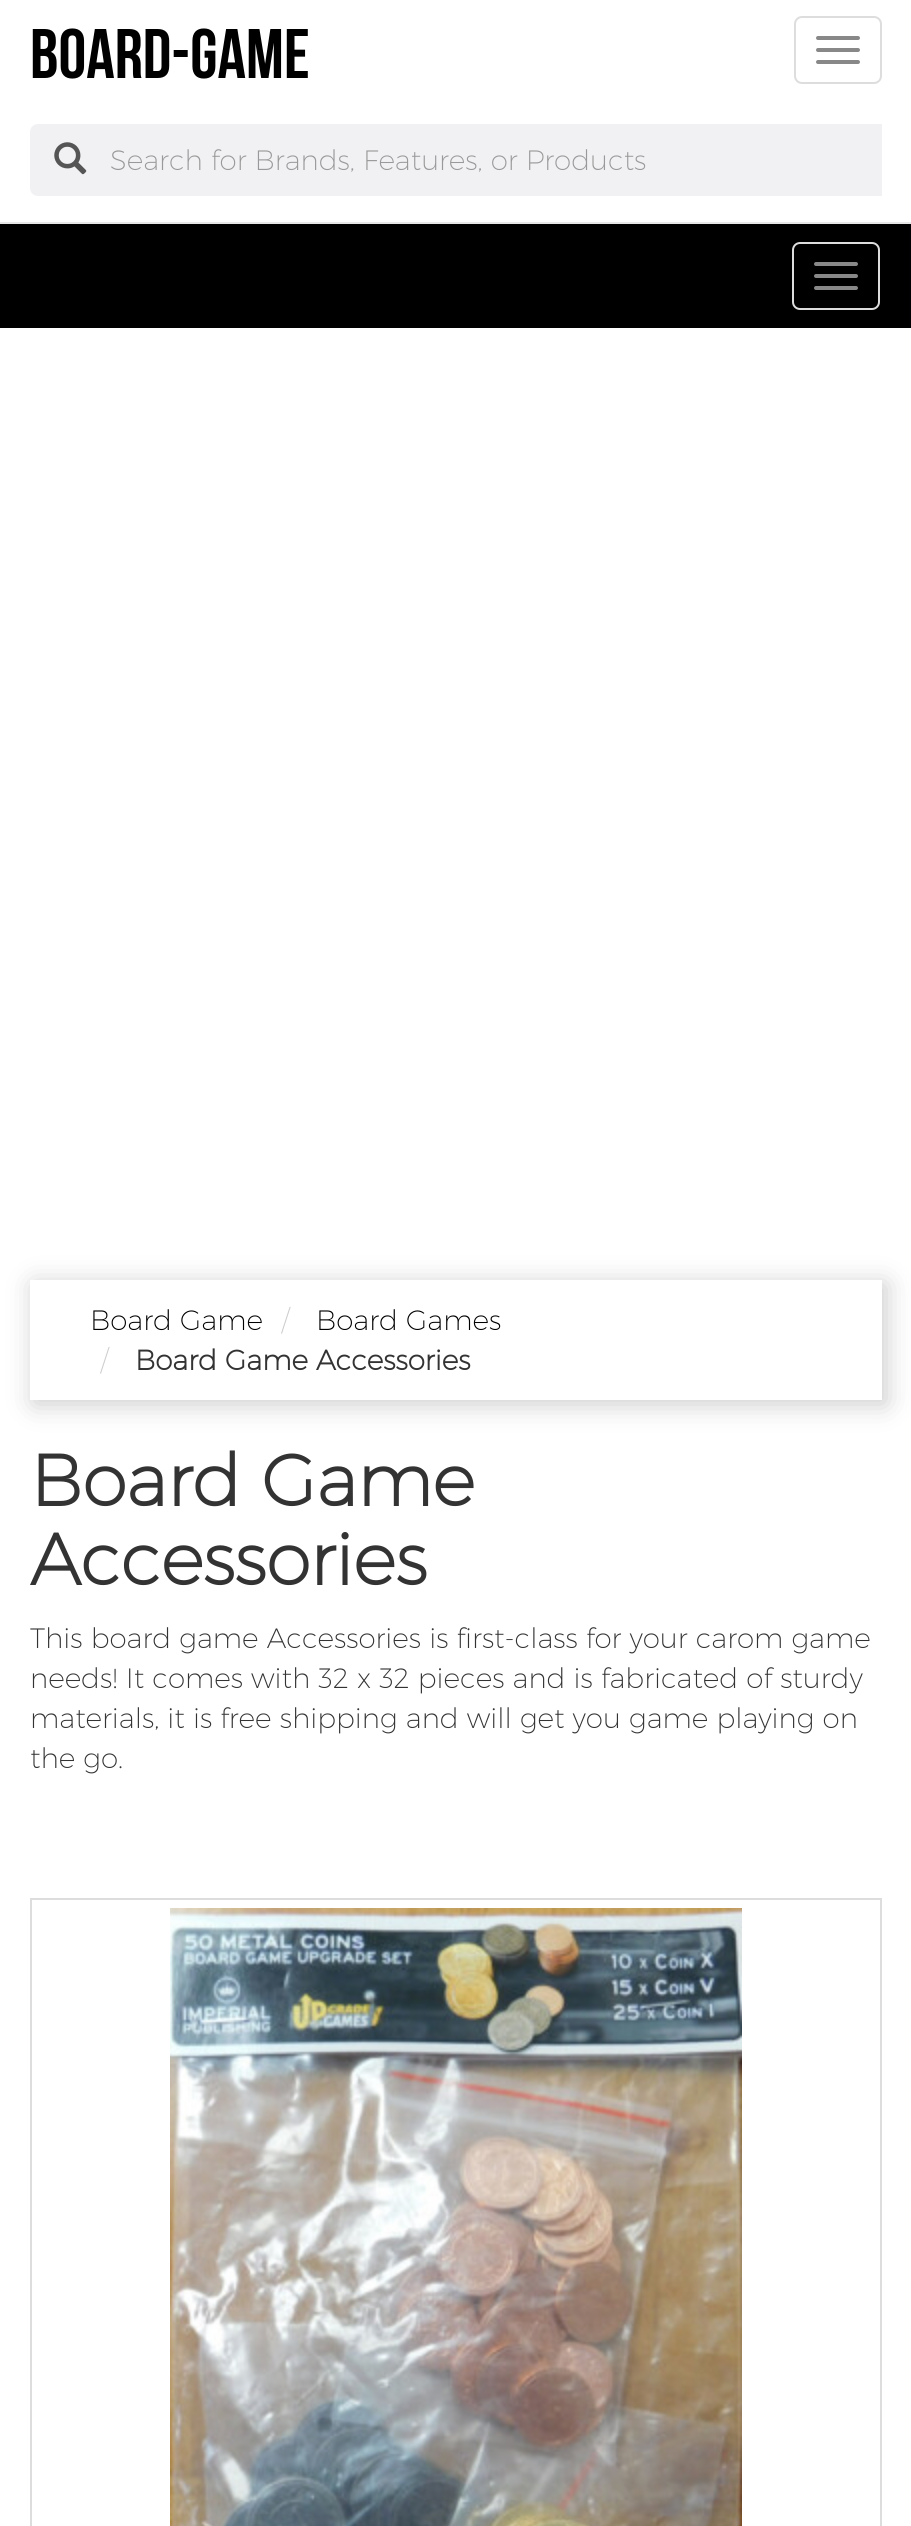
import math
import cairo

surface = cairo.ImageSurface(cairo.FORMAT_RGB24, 911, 2526)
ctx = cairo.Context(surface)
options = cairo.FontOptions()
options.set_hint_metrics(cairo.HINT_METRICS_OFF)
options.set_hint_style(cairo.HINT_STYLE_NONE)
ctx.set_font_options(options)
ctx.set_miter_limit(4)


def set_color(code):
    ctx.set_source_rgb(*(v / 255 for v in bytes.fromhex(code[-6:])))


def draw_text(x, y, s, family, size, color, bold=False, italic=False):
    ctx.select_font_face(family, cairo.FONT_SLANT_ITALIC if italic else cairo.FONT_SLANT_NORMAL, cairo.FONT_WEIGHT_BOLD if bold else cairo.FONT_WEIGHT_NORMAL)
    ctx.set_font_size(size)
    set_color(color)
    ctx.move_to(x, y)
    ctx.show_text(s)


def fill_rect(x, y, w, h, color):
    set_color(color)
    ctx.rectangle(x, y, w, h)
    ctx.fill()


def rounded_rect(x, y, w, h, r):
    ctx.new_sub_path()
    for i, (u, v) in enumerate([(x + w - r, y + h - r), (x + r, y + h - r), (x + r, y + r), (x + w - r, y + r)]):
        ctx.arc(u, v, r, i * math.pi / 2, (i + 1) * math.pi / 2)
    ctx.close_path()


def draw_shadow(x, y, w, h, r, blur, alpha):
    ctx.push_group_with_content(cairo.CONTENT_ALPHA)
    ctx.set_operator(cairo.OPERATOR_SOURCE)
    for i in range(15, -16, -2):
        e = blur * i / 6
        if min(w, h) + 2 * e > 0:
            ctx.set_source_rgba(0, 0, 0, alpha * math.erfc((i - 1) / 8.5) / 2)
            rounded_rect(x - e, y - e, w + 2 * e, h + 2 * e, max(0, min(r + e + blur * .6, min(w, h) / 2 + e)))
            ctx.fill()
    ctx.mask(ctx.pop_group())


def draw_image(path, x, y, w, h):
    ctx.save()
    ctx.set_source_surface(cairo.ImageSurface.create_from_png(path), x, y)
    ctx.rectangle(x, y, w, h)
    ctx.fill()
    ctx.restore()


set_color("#ffffff")
ctx.paint()
fill_rect(0, 222, 911, 2, "#e7e7e7")
draw_text(30, 78, "board-game", "Bebas Neue", 70, "#000000", bold=True)
rounded_rect(795, 17, 86, 66, 7)
set_color("#dddddd")
ctx.stroke()
set_color("#888888")
rounded_rect(816, 36, 44, 4, 2)
ctx.fill()
rounded_rect(816, 48, 44, 4, 2)
ctx.fill()
rounded_rect(816, 60, 44, 4, 2)
ctx.fill()
set_color("#f1f1f4")
ctx.new_path()
ctx.move_to(38, 124)
ctx.line_to(110, 124)
ctx.line_to(110, 196)
ctx.line_to(38, 196)
ctx.curve_to(33.5, 196, 30, 192.5, 30, 188)
ctx.line_to(30, 132)
ctx.curve_to(30, 127.5, 33.5, 124, 38, 124)
ctx.close_path()
ctx.fill()
draw_image("assets/img1.png", 54, 142, 33, 33)
fill_rect(110, 124, 772, 72, "#f1f1f4")
draw_text(110, 170, "Search for Brands, Features, or Products", "Montserrat ExtraLight", 28, "#999999")
fill_rect(0, 224, 911, 104, "#000000")
rounded_rect(793, 243, 86, 66, 7)
set_color("#dddddd")
ctx.stroke()
set_color("#888888")
rounded_rect(814, 262, 44, 4, 2)
ctx.fill()
rounded_rect(814, 274, 44, 4, 2)
ctx.fill()
rounded_rect(814, 286, 44, 4, 2)
ctx.fill()
ctx.save()
ctx.set_fill_rule(cairo.FILL_RULE_EVEN_ODD)
ctx.new_path()
ctx.move_to(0, 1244)
ctx.line_to(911, 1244)
ctx.line_to(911, 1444)
ctx.line_to(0, 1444)
ctx.close_path()
ctx.move_to(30, 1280)
ctx.line_to(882, 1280)
ctx.line_to(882, 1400)
ctx.line_to(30, 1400)
ctx.close_path()
ctx.clip()
set_color("#cccccc")
draw_shadow(34, 1284, 852, 120, 0, 13, 1)
ctx.restore()
draw_text(90, 1330, "Board Game", "Montserrat ExtraLight", 28, "#000000")
draw_text(281, 1330, "/", "Montserrat ExtraLight", 28, "#cccccc")
draw_text(316, 1330, "Board Games", "Montserrat ExtraLight", 28, "#000000")
draw_text(100, 1370, "/", "Montserrat ExtraLight", 28, "#cccccc")
draw_text(135, 1370, "Board Game Accessories", "Montserrat", 28, "#333333", bold=True)
draw_text(30, 1506, "Board Game", "Montserrat", 72, "#333333", bold=True)
draw_text(30, 1585, "Accessories", "Montserrat", 72, "#333333", bold=True)
draw_text(30, 1648, "This board game Accessories is first-class for your carom game", "Montserrat ExtraLight", 28, "#333333")
draw_text(30, 1688, "needs! It comes with 32 x 32 pieces and is fabricated of sturdy", "Montserrat ExtraLight", 28, "#333333")
draw_text(30, 1728, "materials, it is free shipping and will get you game playing on", "Montserrat ExtraLight", 28, "#333333")
draw_text(30, 1768, "the go.", "Montserrat ExtraLight", 28, "#333333")
ctx.rectangle(31, 1899, 850, 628)
set_color("#dddddd")
ctx.stroke()
draw_image("assets/img2.png", 170, 1908, 572, 618)
surface.write_to_png("output.png")
